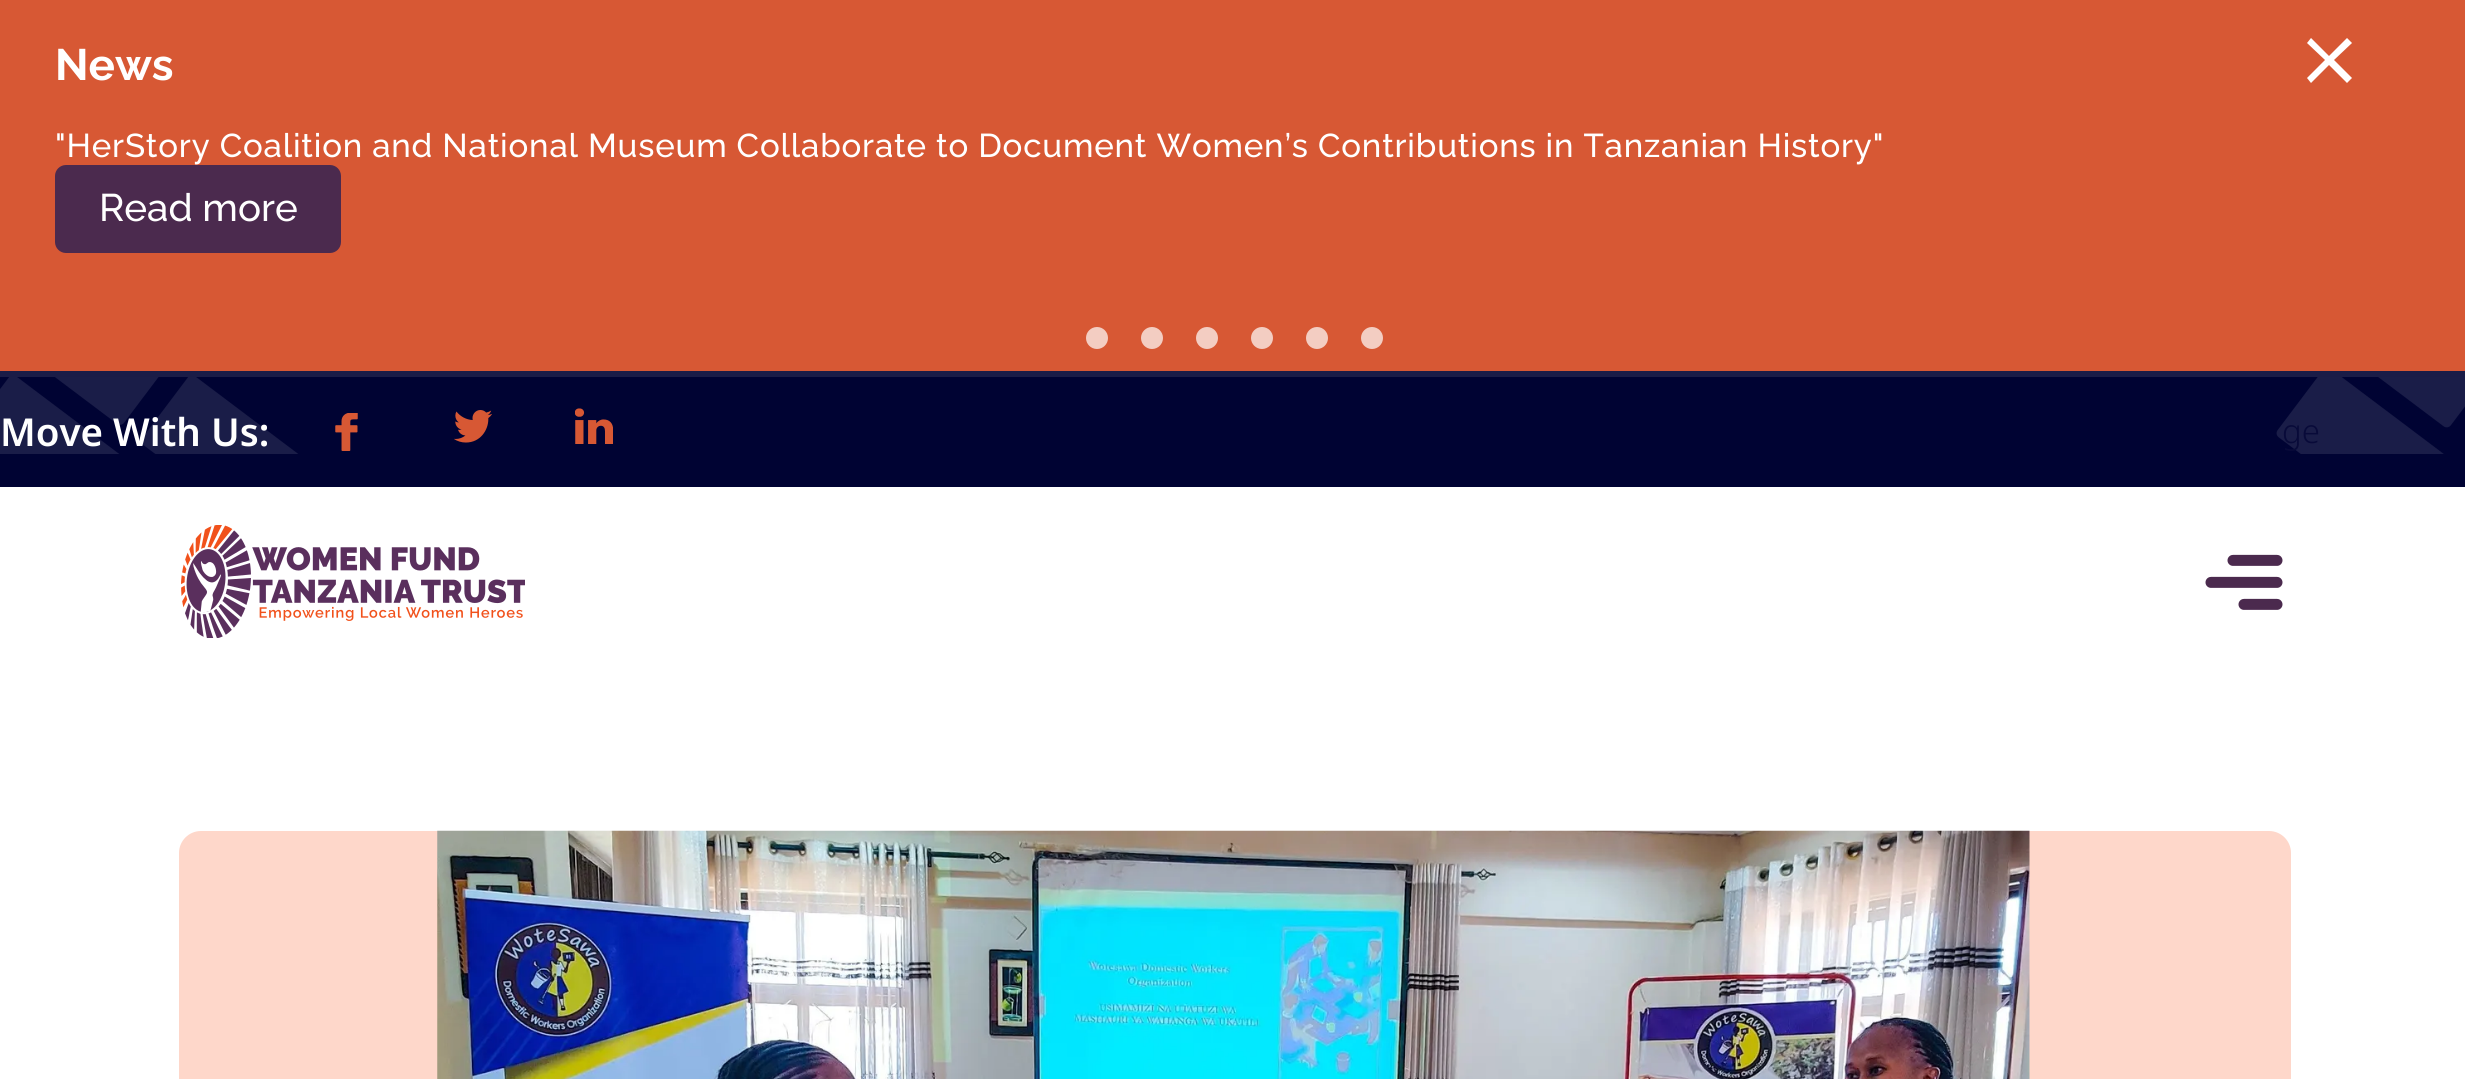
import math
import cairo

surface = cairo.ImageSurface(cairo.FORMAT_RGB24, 2465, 1079)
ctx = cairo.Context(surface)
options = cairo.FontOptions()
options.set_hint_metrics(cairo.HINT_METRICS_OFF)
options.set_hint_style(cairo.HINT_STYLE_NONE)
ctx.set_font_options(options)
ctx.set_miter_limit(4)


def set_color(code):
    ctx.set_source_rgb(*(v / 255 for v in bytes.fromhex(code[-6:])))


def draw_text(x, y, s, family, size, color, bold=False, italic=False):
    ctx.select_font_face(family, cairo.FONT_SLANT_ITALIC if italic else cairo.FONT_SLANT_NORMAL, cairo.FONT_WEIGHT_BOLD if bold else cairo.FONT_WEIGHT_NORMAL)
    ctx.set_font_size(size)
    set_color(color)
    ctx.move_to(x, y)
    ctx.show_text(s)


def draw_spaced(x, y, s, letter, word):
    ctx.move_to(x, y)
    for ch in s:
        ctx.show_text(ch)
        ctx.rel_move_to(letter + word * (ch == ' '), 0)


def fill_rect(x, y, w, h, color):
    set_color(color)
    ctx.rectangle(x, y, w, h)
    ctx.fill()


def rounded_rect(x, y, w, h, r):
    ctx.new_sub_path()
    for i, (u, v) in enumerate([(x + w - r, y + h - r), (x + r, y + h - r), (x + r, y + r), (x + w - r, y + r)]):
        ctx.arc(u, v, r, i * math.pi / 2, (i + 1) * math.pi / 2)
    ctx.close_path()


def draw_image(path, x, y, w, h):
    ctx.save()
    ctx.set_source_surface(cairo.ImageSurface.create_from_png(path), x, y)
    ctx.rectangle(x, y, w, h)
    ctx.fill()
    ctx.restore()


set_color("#ffffff")
ctx.paint()
fill_rect(0, 377, 2465, 110, "#000333")
fill_rect(0, 0, 2465, 371, "#d75834")
fill_rect(0, 371, 2465, 6, "#1a1c47")
draw_text(55, 80, "News", "Raleway", 44, "#ffffff", bold=True)
ctx.select_font_face("Raleway Medium")
ctx.set_font_size(33)
draw_spaced(55, 157, "\"HerStory Coalition and National Museum Collaborate to Document Women’s Contributions in Tanzanian History\"", 0.82, 0)
set_color("#4b2a4e")
rounded_rect(55, 165, 286, 88, 11)
ctx.fill()
draw_text(99, 221, "Read more", "Raleway Medium", 38.5, "#ffffff")
ctx.new_path()
ctx.move_to(2352, 43)
ctx.line_to(2347, 38)
ctx.line_to(2329, 56)
ctx.line_to(2311, 38)
ctx.line_to(2307, 43)
ctx.line_to(2325, 60)
ctx.line_to(2307, 78)
ctx.line_to(2311, 83)
ctx.line_to(2329, 65)
ctx.line_to(2347, 83)
ctx.line_to(2352, 78)
ctx.line_to(2334, 60)
ctx.close_path()
ctx.fill()
set_color("#f3cdc2")
ctx.arc(1097, 338, 11, 0, 2 * math.pi)
ctx.fill()
ctx.arc(1152, 338, 11, 0, 2 * math.pi)
ctx.fill()
ctx.arc(1207, 338, 11, 0, 2 * math.pi)
ctx.fill()
ctx.arc(1262, 338, 11, 0, 2 * math.pi)
ctx.fill()
ctx.arc(1317, 338, 11, 0, 2 * math.pi)
ctx.fill()
ctx.arc(1372, 338, 11, 0, 2 * math.pi)
ctx.fill()
draw_text(0, 446, "Move With Us:", "Noto Sans SemiBold", 38.5, "#ffffff")
draw_image("assets/img2.png", 335, 413, 23, 38)
draw_image("assets/img3.png", 454, 410, 38, 33)
draw_image("assets/img4.png", 575, 408, 38, 36)
draw_image("assets/img1.png", 0, 377, 2465, 77)
draw_text(2282, 443, "ge", "Noto Sans Light", 33, "#080a39")
draw_image("assets/img5.png", 181, 525, 344, 113)
draw_image("assets/img6.png", 2205, 554, 78, 56)
set_color("#fed7ca")
rounded_rect(179, 831, 2112, 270, 22)
ctx.fill()
draw_image("assets/img7.png", 437, 830, 1593, 249)
surface.write_to_png("output.png")
